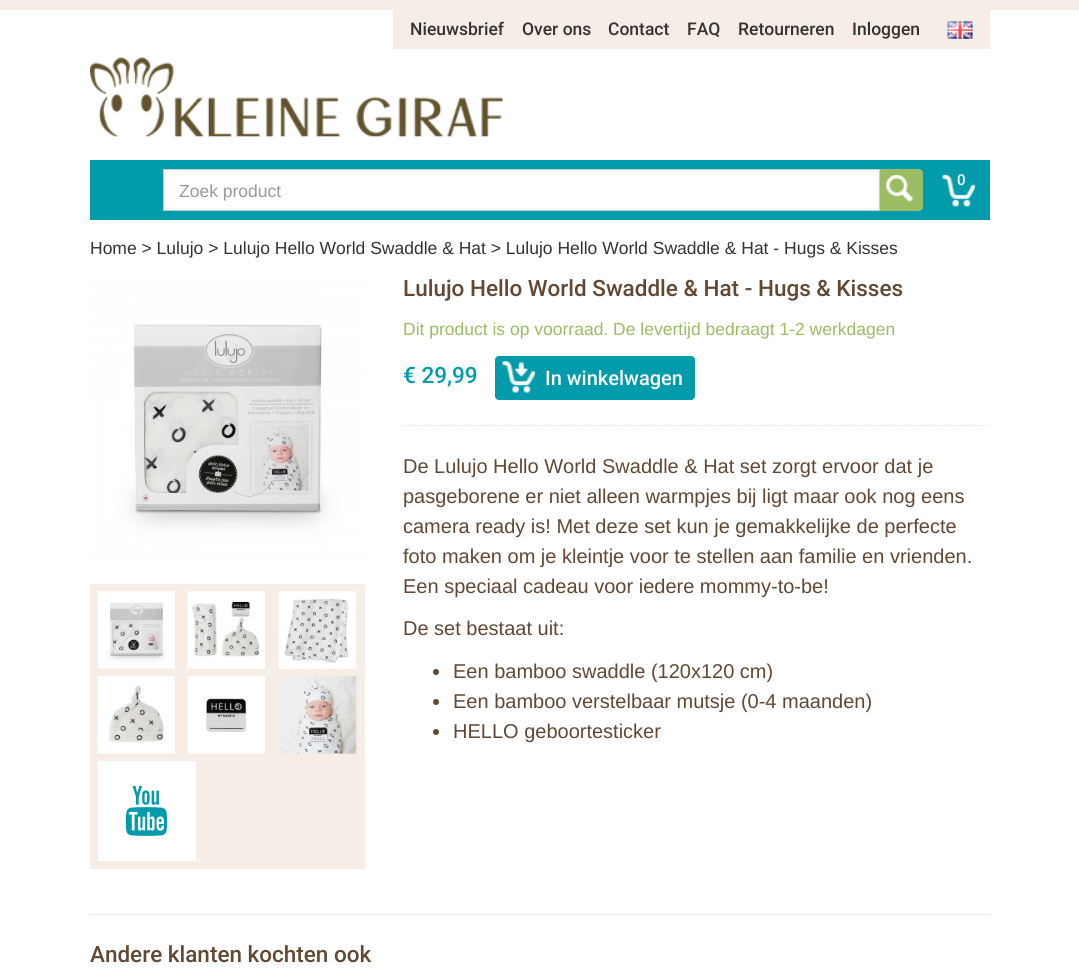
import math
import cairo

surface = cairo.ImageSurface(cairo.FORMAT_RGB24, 1079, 970)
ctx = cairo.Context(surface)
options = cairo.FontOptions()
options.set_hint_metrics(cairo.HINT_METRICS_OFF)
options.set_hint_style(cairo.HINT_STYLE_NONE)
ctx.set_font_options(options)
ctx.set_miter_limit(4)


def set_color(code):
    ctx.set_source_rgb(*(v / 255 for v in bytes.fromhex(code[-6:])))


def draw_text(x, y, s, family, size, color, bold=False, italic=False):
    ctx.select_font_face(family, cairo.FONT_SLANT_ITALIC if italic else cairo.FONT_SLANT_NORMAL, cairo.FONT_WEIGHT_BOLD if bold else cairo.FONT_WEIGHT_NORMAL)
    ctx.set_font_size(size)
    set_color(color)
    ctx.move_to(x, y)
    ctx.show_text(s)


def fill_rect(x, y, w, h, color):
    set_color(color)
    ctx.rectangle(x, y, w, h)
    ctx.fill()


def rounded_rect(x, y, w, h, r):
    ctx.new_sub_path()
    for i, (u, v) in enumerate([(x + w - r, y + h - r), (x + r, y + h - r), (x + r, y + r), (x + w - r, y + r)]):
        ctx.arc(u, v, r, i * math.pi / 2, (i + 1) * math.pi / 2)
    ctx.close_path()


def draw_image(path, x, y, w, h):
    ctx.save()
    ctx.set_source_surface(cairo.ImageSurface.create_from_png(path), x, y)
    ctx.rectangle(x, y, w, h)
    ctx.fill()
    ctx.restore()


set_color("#ffffff")
ctx.paint()
fill_rect(0, 0, 1079, 10, "#f6ede6")
fill_rect(393, 10, 597, 39, "#f6ede6")
draw_text(410, 35, "Nieuwsbrief", "Roboto Medium", 17.5, "#333333")
draw_text(522, 35, "Over ons", "Roboto Medium", 17.5, "#333333")
draw_text(608, 35, "Contact", "Roboto Medium", 17.5, "#333333")
draw_text(687, 35, "FAQ", "Roboto Medium", 17.5, "#333333")
draw_text(738, 35, "Retourneren", "Roboto Medium", 17.5, "#333333")
draw_text(852, 35, "Inloggen", "Roboto Medium", 17.5, "#333333")
draw_image("assets/img1.png", 947, 21, 26, 18)
draw_image("assets/img2.png", 90, 57, 413, 80)
fill_rect(90, 160, 900, 60, "#029bab")
draw_image("assets/img3.png", 942, 174, 33, 33)
draw_text(957, 185, "0", "Roboto Medium", 15, "#ffffff")
set_color("#9bbc62")
ctx.new_path()
ctx.move_to(879, 169)
ctx.line_to(919, 169)
ctx.curve_to(921, 169, 923, 171, 923, 173)
ctx.line_to(923, 207)
ctx.curve_to(923, 209, 921, 211, 919, 211)
ctx.line_to(879, 211)
ctx.close_path()
ctx.fill()
set_color("#ffffff")
ctx.rectangle(163.5, 169.5, 716, 41)
ctx.fill_preserve()
set_color("#cccccc")
ctx.set_line_width(1)
ctx.stroke()
draw_text(179, 197, "Zoek product", "Liberation Sans", 17.5, "#999999")
draw_image("assets/img4.png", 886, 175, 27, 27)
draw_text(90, 254, "Home > Lulujo > Lulujo Hello World Swaddle & Hat > Lulujo Hello World Swaddle & Hat - Hugs & Kisses", "Liberation Sans", 17.5, "#333333")
draw_image("assets/img5.png", 90, 284, 275, 275)
fill_rect(90, 584, 275, 285, "#f6ede6")
draw_image("assets/img6.png", 97, 591, 78, 78)
draw_image("assets/img7.png", 187, 591, 78, 78)
draw_image("assets/img8.png", 278, 591, 79, 78)
draw_image("assets/img9.png", 97, 676, 78, 78)
draw_image("assets/img10.png", 187, 676, 78, 78)
draw_image("assets/img11.png", 279, 676, 78, 78)
fill_rect(98, 761, 98, 100, "#ffffff")
draw_image("assets/img12.png", 125, 785, 43, 51)
draw_text(403, 296, "Lulujo Hello World Swaddle & Hat - Hugs & Kisses", "Roboto Medium", 22.5, "#624832")
draw_text(403, 335, "Dit product is op voorraad. De levertijd bedraagt 1-2 werkdagen", "Liberation Sans", 17.5, "#9bbc62")
draw_text(403, 383, "€ 29,99", "Roboto Medium", 22.5, "#019bab")
rounded_rect(495, 356, 200, 44, 4)
ctx.fill()
draw_image("assets/img13.png", 502, 361, 33, 32)
draw_text(545, 385, "In winkelwagen", "Roboto Medium", 20, "#ffffff")
ctx.new_path()
ctx.move_to(402.5, 425.5)
ctx.line_to(990, 425.5)
set_color("#e5e0e0")
ctx.set_line_width(1.2)
ctx.set_dash([1.25, 1.25])
ctx.stroke()
draw_text(403, 473, "De Lulujo Hello World Swaddle & Hat set zorgt ervoor dat je", "Liberation Sans", 20, "#624832")
draw_text(403, 503, "pasgeborene er niet alleen warmpjes bij ligt maar ook nog eens", "Liberation Sans", 20, "#624832")
draw_text(403, 533, "camera ready is! Met deze set kun je gemakkelijke de perfecte", "Liberation Sans", 20, "#624832")
draw_text(403, 563, "foto maken om je kleintje voor te stellen aan familie en vrienden.", "Liberation Sans", 20, "#624832")
draw_text(403, 593, "Een speciaal cadeau voor iedere mommy-to-be!", "Liberation Sans", 20, "#624832")
draw_text(403, 635, "De set bestaat uit:", "Liberation Sans", 20, "#624832")
ctx.new_path()
ctx.arc(436, 672, 3, 0, 2 * math.pi)
ctx.fill()
draw_text(453, 678, "Een bamboo swaddle (120x120 cm)", "Liberation Sans", 20, "#624832")
ctx.new_path()
ctx.arc(436, 702, 3, 0, 2 * math.pi)
ctx.fill()
draw_text(453, 708, "Een bamboo verstelbaar mutsje (0-4 maanden)", "Liberation Sans", 20, "#624832")
ctx.new_path()
ctx.arc(436, 732, 3, 0, 2 * math.pi)
ctx.fill()
draw_text(453, 738, "HELLO geboortesticker", "Liberation Sans", 20, "#624832")
fill_rect(90, 914, 900, 1, "#eeeeee")
draw_text(90, 962, "Andere klanten kochten ook", "Roboto Medium", 22.5, "#624832")
surface.write_to_png("output.png")
